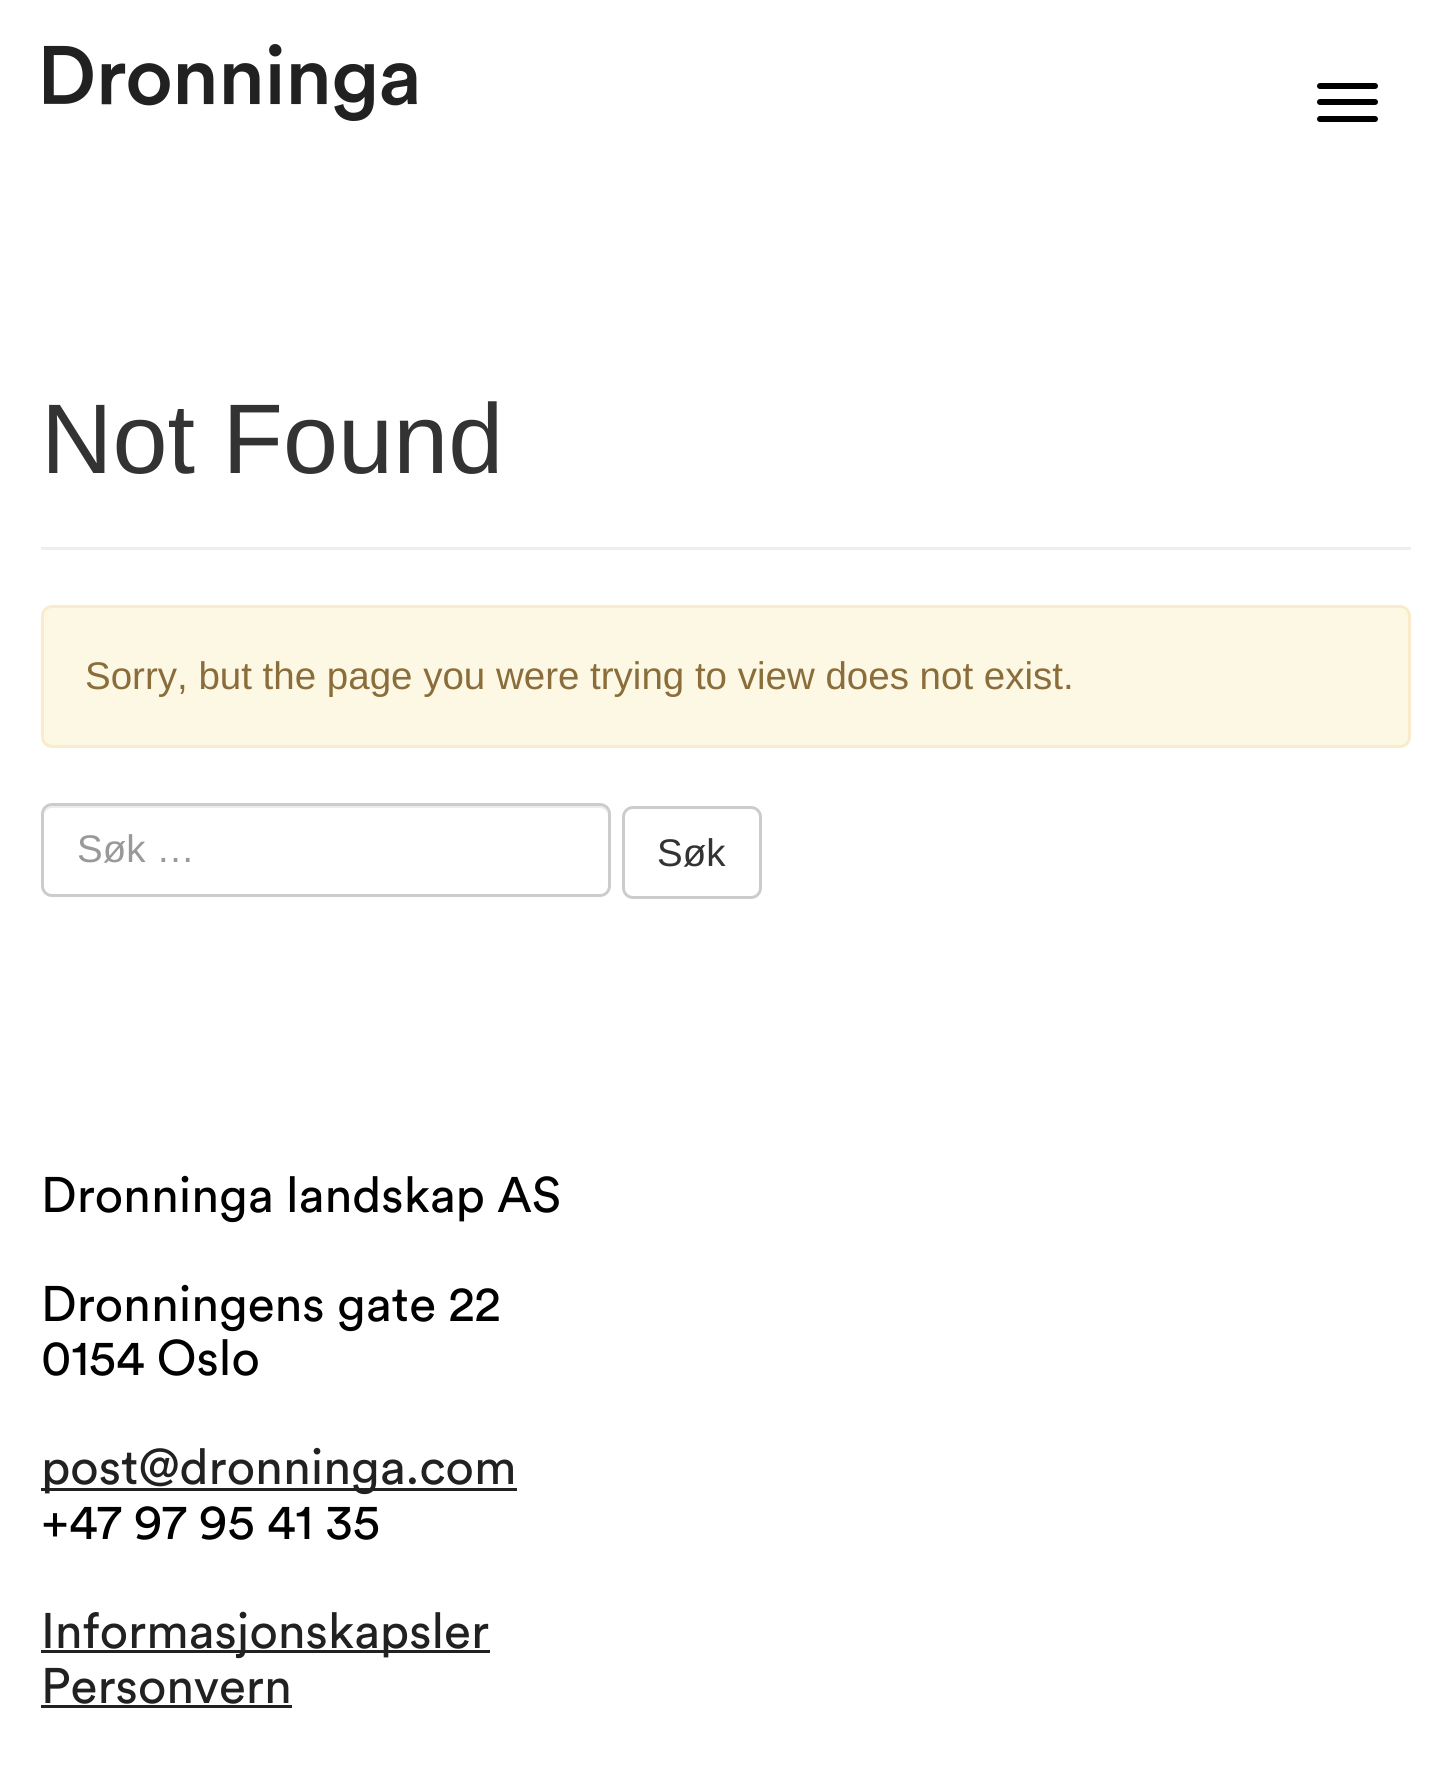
import math
import cairo

surface = cairo.ImageSurface(cairo.FORMAT_RGB24, 1452, 1787)
ctx = cairo.Context(surface)
options = cairo.FontOptions()
options.set_hint_metrics(cairo.HINT_METRICS_OFF)
options.set_hint_style(cairo.HINT_STYLE_NONE)
ctx.set_font_options(options)
ctx.set_miter_limit(4)


def set_color(code):
    ctx.set_source_rgb(*(v / 255 for v in bytes.fromhex(code[-6:])))


def draw_text(x, y, s, family, size, color, bold=False, italic=False):
    ctx.select_font_face(family, cairo.FONT_SLANT_ITALIC if italic else cairo.FONT_SLANT_NORMAL, cairo.FONT_WEIGHT_BOLD if bold else cairo.FONT_WEIGHT_NORMAL)
    ctx.set_font_size(size)
    set_color(color)
    ctx.move_to(x, y)
    ctx.show_text(s)


def fill_rect(x, y, w, h, color):
    set_color(color)
    ctx.rectangle(x, y, w, h)
    ctx.fill()


def rounded_rect(x, y, w, h, r):
    ctx.new_sub_path()
    for i, (u, v) in enumerate([(x + w - r, y + h - r), (x + r, y + h - r), (x + r, y + r), (x + w - r, y + r)]):
        ctx.arc(u, v, r, i * math.pi / 2, (i + 1) * math.pi / 2)
    ctx.close_path()


def draw_image(path, x, y, w, h):
    ctx.save()
    ctx.set_source_surface(cairo.ImageSurface.create_from_png(path), x, y)
    ctx.rectangle(x, y, w, h)
    ctx.fill()
    ctx.restore()


set_color("#ffffff")
ctx.paint()
draw_image("assets/img1.png", 44, 44, 373, 77)
set_color("#000000")
rounded_rect(1317, 83, 61, 6, 3)
ctx.fill()
rounded_rect(1317, 99, 61, 6, 3)
ctx.fill()
rounded_rect(1317, 116, 61, 6, 3)
ctx.fill()
fill_rect(41, 547, 1370, 3, "#eeeeee")
draw_text(41, 473, "Not Found", "Liberation Sans", 99, "#333333")
set_color("#fcf8e3")
rounded_rect(42.5, 606.5, 1367, 140, 9.5)
ctx.fill_preserve()
set_color("#faebcc")
ctx.set_line_width(3)
ctx.stroke()
draw_text(85, 689, "Sorry, but the page you were trying to view does not exist.", "Liberation Sans", 38.5, "#8a6d3b")
set_color("#ececec")
ctx.new_path()
ctx.move_to(52, 808)
ctx.line_to(600, 808)
ctx.curve_to(604, 808, 608, 812, 608, 817)
ctx.curve_to(608, 812, 606, 806, 600, 806)
ctx.line_to(52, 806)
ctx.curve_to(46, 806, 44, 812, 44, 817)
ctx.curve_to(44, 812, 48, 808, 52, 808)
ctx.close_path()
ctx.fill()
rounded_rect(42.5, 804.5, 567, 91, 9.5)
set_color("#cccccc")
ctx.stroke()
draw_text(77, 862, "Søk …", "Liberation Sans", 38.5, "#999999")
rounded_rect(623.5, 807.5, 137, 90, 9.5)
set_color("#cccccc")
ctx.stroke()
draw_text(657, 866, "Søk", "Liberation Sans", 38.5, "#333333")
draw_text(41, 1212, "Dronninga landskap AS", "Circular", 49.5, "#000000")
draw_text(41, 1321, "Dronningens gate 22", "Circular", 49.5, "#000000")
draw_text(41, 1375, "0154 Oslo", "Circular", 49.5, "#000000")
fill_rect(41, 1488, 476, 3, "#212121")
draw_text(41, 1484, "post@dronninga.com", "Circular", 49.5, "#212121")
draw_text(41, 1539, "+47 97 95 41 35", "Circular", 49.5, "#000000")
fill_rect(41, 1650, 449, 3, "#212121")
draw_text(41, 1648, "Informasjonskapsler", "Circular", 49.5, "#212121")
draw_text(41, 1703, "Personvern", "Circular", 49.5, "#212121")
fill_rect(41, 1705, 251, 3, "#212121")
surface.write_to_png("output.png")
